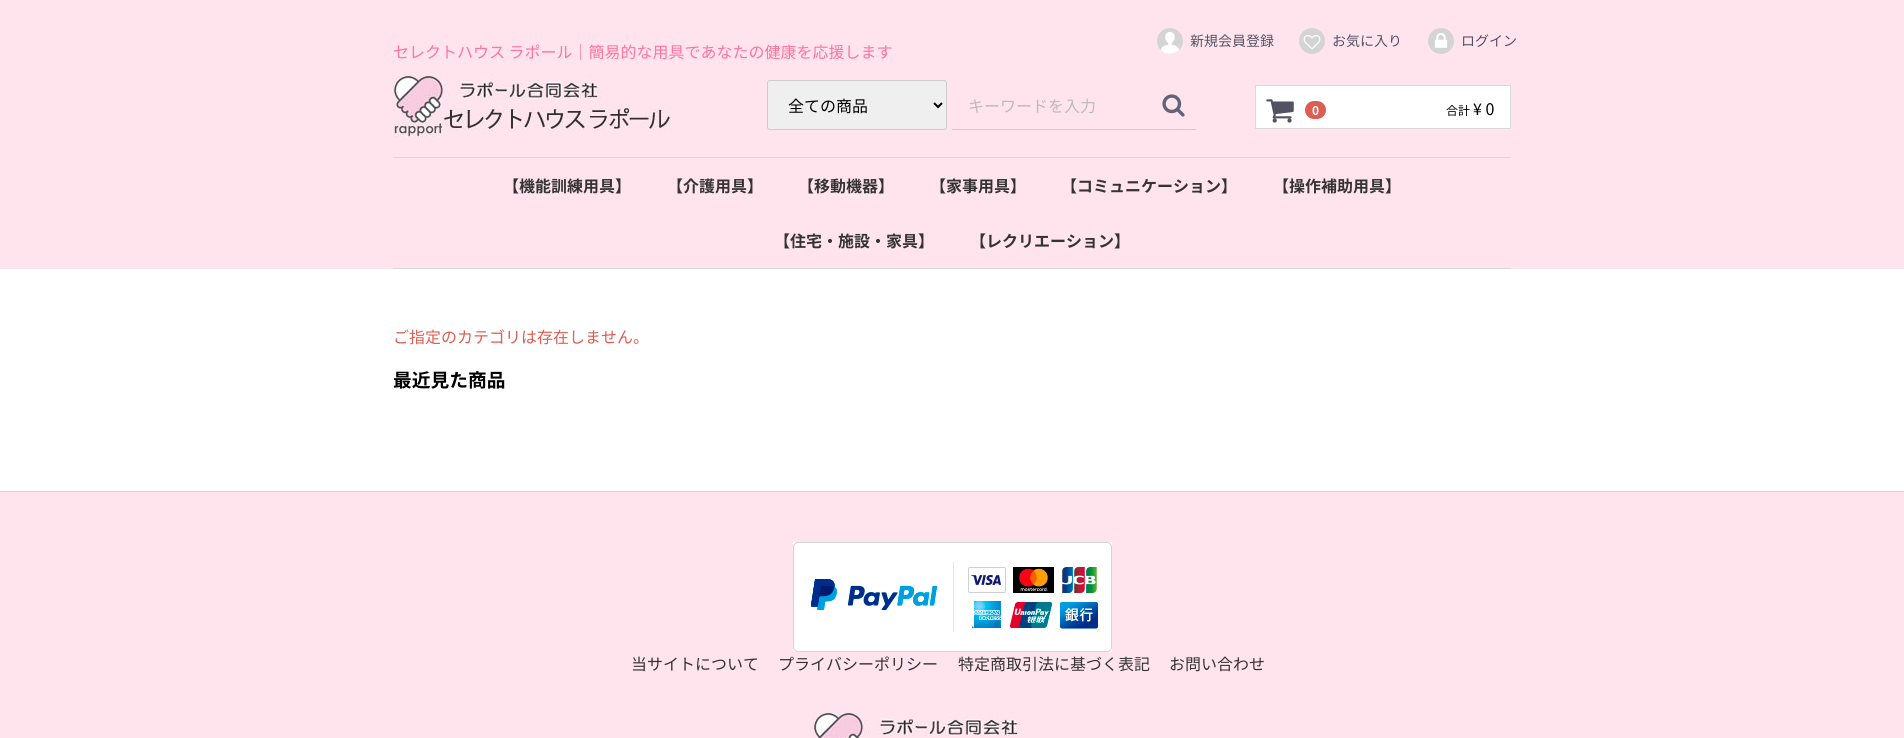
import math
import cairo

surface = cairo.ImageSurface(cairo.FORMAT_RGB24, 1904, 738)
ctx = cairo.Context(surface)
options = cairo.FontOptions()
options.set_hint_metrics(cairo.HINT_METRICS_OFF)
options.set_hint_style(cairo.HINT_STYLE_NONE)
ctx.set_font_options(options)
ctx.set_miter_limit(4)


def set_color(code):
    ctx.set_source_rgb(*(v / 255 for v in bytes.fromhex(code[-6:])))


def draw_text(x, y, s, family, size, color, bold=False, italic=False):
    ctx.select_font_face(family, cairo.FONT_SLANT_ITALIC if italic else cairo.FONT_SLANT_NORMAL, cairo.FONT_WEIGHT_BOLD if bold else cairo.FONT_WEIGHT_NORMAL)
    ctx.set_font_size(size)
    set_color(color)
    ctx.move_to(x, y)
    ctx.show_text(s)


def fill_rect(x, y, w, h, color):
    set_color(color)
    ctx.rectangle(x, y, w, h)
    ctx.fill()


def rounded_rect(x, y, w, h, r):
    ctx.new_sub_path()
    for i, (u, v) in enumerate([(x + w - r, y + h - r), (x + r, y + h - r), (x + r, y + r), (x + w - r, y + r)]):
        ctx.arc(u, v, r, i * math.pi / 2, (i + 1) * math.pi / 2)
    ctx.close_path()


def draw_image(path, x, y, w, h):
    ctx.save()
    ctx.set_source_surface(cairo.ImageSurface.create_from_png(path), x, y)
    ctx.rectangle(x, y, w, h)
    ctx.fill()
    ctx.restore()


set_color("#ffffff")
ctx.paint()
fill_rect(0, 0, 1904, 269, "#ffe4ed")
draw_image("assets/img1.png", 1157, 28, 26, 26)
draw_text(1190, 46, "新規会員登録", "Noto Sans JP", 14, "#525263")
draw_image("assets/img2.png", 1299, 28, 26, 26)
draw_text(1332, 46, "お気に入り", "Noto Sans JP", 14, "#525263")
draw_image("assets/img3.png", 1428, 28, 26, 26)
draw_text(1461, 46, "ログイン", "Noto Sans JP", 14, "#525263")
draw_text(393, 58, "セレクトハウス ラポール｜簡易的な用具であなたの健康を応援します", "Noto Sans JP", 16, "#ff73a0")
draw_image("assets/img4.png", 393, 75, 279, 62)
set_color("#efefef")
rounded_rect(767.5, 80.5, 179, 49, 2.5)
ctx.fill_preserve()
set_color("#cccccc")
ctx.set_line_width(1)
ctx.stroke()
ctx.new_path()
ctx.move_to(934, 103)
ctx.line_to(938, 107)
ctx.line_to(942, 103)
set_color("#000000")
ctx.set_line_width(2)
ctx.stroke()
draw_text(788, 112, "全ての商品", "Noto Sans JP", 16, "#000000")
fill_rect(952, 129, 244, 1, "#cccccc")
draw_text(968, 112, "キーワードを入力", "Noto Sans JP", 16, "#bbbbbb")
draw_image("assets/img5.png", 1162, 94, 23, 23)
set_color("#ffffff")
ctx.rectangle(1255.5, 85.5, 255, 43)
ctx.fill_preserve()
set_color("#d9d9d9")
ctx.set_line_width(1)
ctx.stroke()
draw_image("assets/img6.png", 1266, 99, 28, 24)
set_color("#de5d50")
rounded_rect(1305, 101, 21, 18, 9)
ctx.fill()
draw_text(1312, 115, "0", "Noto Sans JP", 12, "#ffffff", bold=True)
draw_text(1446, 115, "合計", "Noto Sans JP", 12, "#000000")
draw_text(1473, 115, "¥ 0", "Noto Sans JP", 16, "#000000")
fill_rect(393, 157, 1118, 1, "#d9d9d9")
fill_rect(393, 268, 1118, 1, "#d9d9d9")
draw_text(503, 192, "【機能訓練用具】", "Noto Sans JP", 16, "#333333", bold=True)
draw_text(667, 192, "【介護用具】", "Noto Sans JP", 16, "#333333", bold=True)
draw_text(798, 192, "【移動機器】", "Noto Sans JP", 16, "#333333", bold=True)
draw_text(930, 192, "【家事用具】", "Noto Sans JP", 16, "#333333", bold=True)
draw_text(1061, 192, "【コミュニケーション】", "Noto Sans JP", 16, "#333333", bold=True)
draw_text(1273, 192, "【操作補助用具】", "Noto Sans JP", 16, "#333333", bold=True)
draw_text(774, 247, "【住宅・施設・家具】", "Noto Sans JP", 16, "#333333", bold=True)
draw_text(970, 247, "【レクリエーション】", "Noto Sans JP", 16, "#333333", bold=True)
draw_text(393, 343, "ご指定のカテゴリは存在しません。", "Noto Sans JP", 16, "#de5d50")
draw_text(393, 387, "最近見た商品", "Noto Sans JP", 18.75, "#000000", bold=True)
fill_rect(0, 492, 1904, 246, "#ffe4ed")
fill_rect(0, 491, 1904, 1, "#e5cdd5")
draw_image("assets/img7.png", 793, 542, 319, 110)
draw_text(631, 670, "当サイトについて", "Noto Sans JP", 16, "#333333")
draw_text(778, 670, "プライバシーポリシー", "Noto Sans JP", 16, "#333333")
draw_text(958, 670, "特定商取引法に基づく表記", "Noto Sans JP", 16, "#333333")
draw_text(1169, 670, "お問い合わせ", "Noto Sans JP", 16, "#333333")
draw_image("assets/img8.png", 813, 712, 208, 26)
surface.write_to_png("output.png")
